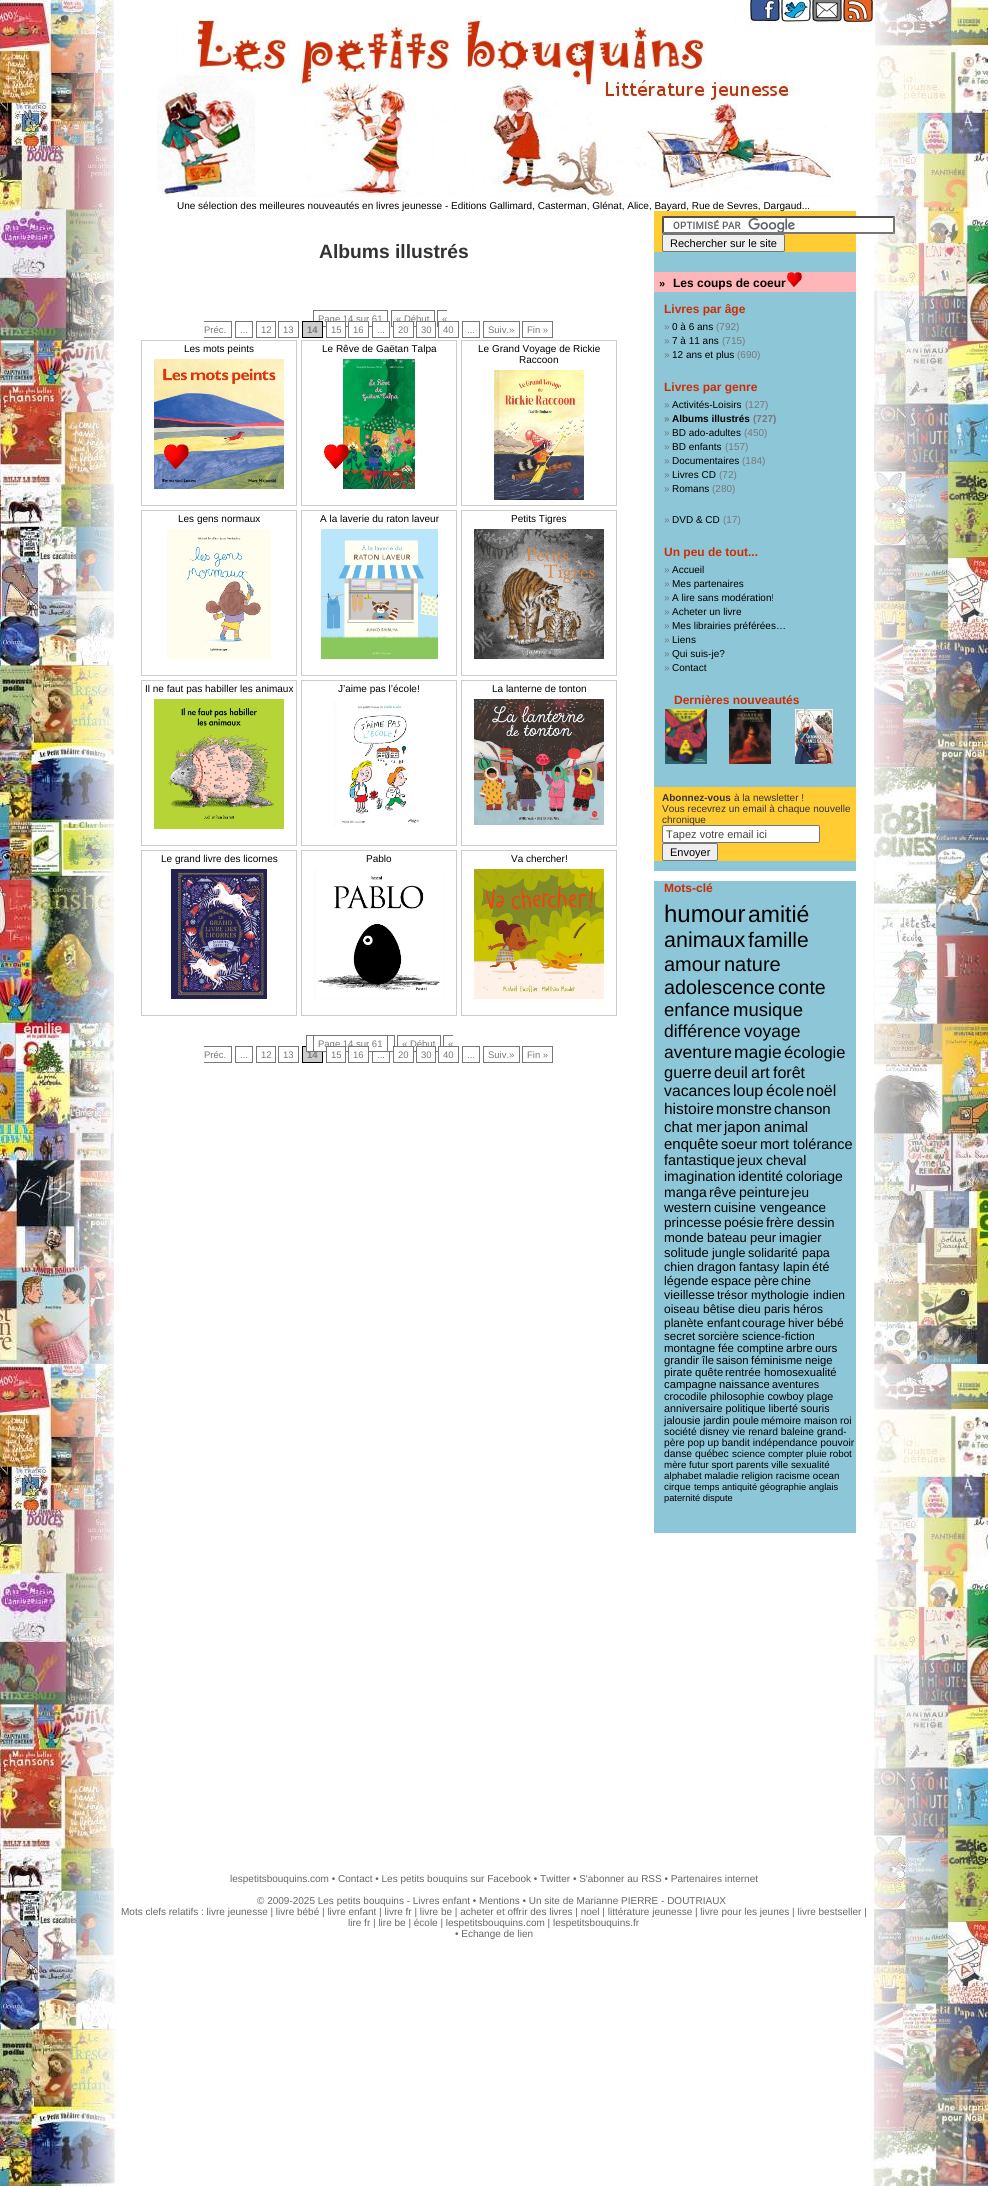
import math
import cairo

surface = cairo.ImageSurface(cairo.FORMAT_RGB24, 988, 2186)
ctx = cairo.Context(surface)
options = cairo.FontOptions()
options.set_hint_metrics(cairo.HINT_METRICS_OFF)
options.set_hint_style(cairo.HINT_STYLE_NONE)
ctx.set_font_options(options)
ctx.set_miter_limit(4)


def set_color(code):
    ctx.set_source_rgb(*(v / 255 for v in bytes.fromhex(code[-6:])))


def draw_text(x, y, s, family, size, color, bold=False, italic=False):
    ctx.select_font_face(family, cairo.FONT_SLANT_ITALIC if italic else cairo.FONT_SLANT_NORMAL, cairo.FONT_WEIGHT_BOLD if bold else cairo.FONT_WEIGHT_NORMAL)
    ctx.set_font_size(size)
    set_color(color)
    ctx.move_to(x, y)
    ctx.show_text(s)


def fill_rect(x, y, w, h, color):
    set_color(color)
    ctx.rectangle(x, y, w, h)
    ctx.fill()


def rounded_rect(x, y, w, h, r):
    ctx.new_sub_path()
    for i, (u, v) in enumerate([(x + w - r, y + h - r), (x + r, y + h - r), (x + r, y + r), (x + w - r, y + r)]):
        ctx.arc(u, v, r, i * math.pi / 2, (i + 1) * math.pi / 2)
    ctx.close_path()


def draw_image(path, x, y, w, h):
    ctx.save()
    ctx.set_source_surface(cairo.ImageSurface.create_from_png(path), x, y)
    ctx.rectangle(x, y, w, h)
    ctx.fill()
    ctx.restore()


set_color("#ffffff")
ctx.paint()
draw_image("assets/img1.png", 0, 0, 988, 2186)
fill_rect(114, 0, 760, 1959, "#ffffff")
draw_image("assets/img2.png", 157, 0, 718, 200)
fill_rect(654, 211, 202, 41, "#ffcc33")
draw_text(177, 209, "Une sélection des meilleures nouveautés en livres jeunesse - Editions Gallimard, Casterman, Glénat, Alice, Bayard, Rue de Sevres, Dargaud...", "Liberation Sans", 10, "#000000")
draw_text(319, 258, "Albums illustrés", "Liberation Sans", 19.25, "#333333", bold=True)
ctx.rectangle(313.5, 310.5, 74, 16)
set_color("#777777")
ctx.set_line_width(1)
ctx.stroke()
draw_text(318, 322, "Page 14 sur 61", "Liberation Sans", 9.5, "#777777")
ctx.rectangle(391.5, 310.5, 43, 16)
ctx.stroke()
draw_text(396, 322, "« Début", "Liberation Sans", 9.5, "#777777")
draw_text(442, 322, "«", "Liberation Sans", 9.5, "#777777")
fill_rect(437, 310, 10, 1, "#777777")
fill_rect(437, 310, 1, 17, "#777777")
draw_text(204, 333, "Préc.", "Liberation Sans", 9.5, "#777777")
fill_rect(204, 321, 28, 1, "#777777")
fill_rect(231, 321, 1, 17, "#777777")
fill_rect(204, 337, 28, 1, "#777777")
ctx.rectangle(235.5, 321.5, 17, 16)
ctx.stroke()
draw_text(240, 333, "...", "Liberation Sans", 9.5, "#777777")
ctx.rectangle(256.5, 321.5, 19, 16)
ctx.stroke()
draw_text(261, 333, "12", "Liberation Sans", 9.5, "#777777")
ctx.rectangle(278.5, 321.5, 20, 16)
ctx.stroke()
draw_text(283, 333, "13", "Liberation Sans", 9.5, "#777777")
set_color("#cccccc")
ctx.rectangle(302.5, 321.5, 20, 16)
ctx.fill_preserve()
set_color("#000000")
ctx.stroke()
draw_text(307, 333, "14", "Liberation Sans", 9.5, "#777777", bold=True)
fill_rect(327, 322, 18, 5, "#ffffff")
ctx.rectangle(326.5, 321.5, 19, 16)
set_color("#777777")
ctx.stroke()
draw_text(331, 333, "15", "Liberation Sans", 9.5, "#777777")
fill_rect(349, 322, 19, 5, "#ffffff")
ctx.rectangle(348.5, 321.5, 20, 16)
set_color("#777777")
ctx.stroke()
draw_text(353, 333, "16", "Liberation Sans", 9.5, "#777777")
fill_rect(373, 322, 15, 5, "#ffffff")
ctx.rectangle(372.5, 321.5, 17, 16)
set_color("#777777")
ctx.stroke()
draw_text(377, 333, "...", "Liberation Sans", 9.5, "#777777")
fill_rect(394, 326, 19, 1, "#ffffff")
ctx.rectangle(393.5, 321.5, 20, 16)
set_color("#777777")
ctx.stroke()
draw_text(398, 333, "20", "Liberation Sans", 9.5, "#777777")
fill_rect(417, 322, 18, 5, "#ffffff")
ctx.rectangle(416.5, 321.5, 19, 16)
set_color("#777777")
ctx.stroke()
draw_text(421, 333, "30", "Liberation Sans", 9.5, "#777777")
ctx.rectangle(438.5, 321.5, 20, 16)
ctx.stroke()
draw_text(443, 333, "40", "Liberation Sans", 9.5, "#777777")
ctx.rectangle(462.5, 321.5, 17, 16)
ctx.stroke()
draw_text(467, 333, "...", "Liberation Sans", 9.5, "#777777")
ctx.rectangle(483.5, 321.5, 36, 16)
ctx.stroke()
draw_text(488, 333, "Suiv.»", "Liberation Sans", 9.5, "#777777")
ctx.rectangle(522.5, 321.5, 30, 16)
ctx.stroke()
draw_text(527, 333, "Fin »", "Liberation Sans", 9.5, "#777777")
ctx.rectangle(141.5, 340.5, 155, 165)
set_color("#cccccc")
ctx.stroke()
draw_text(184, 352, "Les mots peints", "Liberation Sans", 10, "#000000")
draw_image("assets/img3.png", 154, 359, 130, 130)
draw_image("assets/img4.png", 164, 444, 25, 25)
ctx.rectangle(301.5, 340.5, 155, 165)
set_color("#cccccc")
ctx.stroke()
draw_text(322, 352, "Le Rêve de Gaëtan Talpa", "Liberation Sans", 10, "#000000")
draw_image("assets/img6.png", 343, 359, 72, 130)
draw_image("assets/img5.png", 324, 444, 25, 25)
ctx.rectangle(461.5, 340.5, 155, 165)
set_color("#cccccc")
ctx.stroke()
draw_text(478, 352, "Le Grand Voyage de Rickie", "Liberation Sans", 10, "#000000")
draw_text(519, 363, "Raccoon", "Liberation Sans", 10, "#000000")
draw_image("assets/img7.png", 494, 370, 90, 130)
ctx.rectangle(141.5, 510.5, 155, 165)
set_color("#cccccc")
ctx.stroke()
draw_text(178, 522, "Les gens normaux", "Liberation Sans", 10, "#000000")
draw_image("assets/img8.png", 167, 529, 104, 130)
ctx.rectangle(301.5, 510.5, 155, 165)
set_color("#cccccc")
ctx.stroke()
draw_text(320, 522, "A la laverie du raton laveur", "Liberation Sans", 10, "#000000")
draw_image("assets/img9.png", 321, 529, 117, 130)
ctx.rectangle(461.5, 510.5, 155, 165)
set_color("#cccccc")
ctx.stroke()
draw_text(511, 522, "Petits Tigres", "Liberation Sans", 10, "#000000")
draw_image("assets/img10.png", 474, 529, 130, 130)
ctx.rectangle(141.5, 680.5, 155, 165)
set_color("#cccccc")
ctx.stroke()
draw_text(145, 692, "Il ne faut pas habiller les animaux", "Liberation Sans", 10, "#000000")
draw_image("assets/img11.png", 154, 699, 130, 130)
ctx.rectangle(301.5, 680.5, 155, 165)
set_color("#cccccc")
ctx.stroke()
draw_text(338, 692, "J’aime pas l’école!", "Liberation Sans", 10, "#000000")
draw_image("assets/img12.png", 334, 699, 85, 130)
ctx.rectangle(461.5, 680.5, 155, 165)
set_color("#cccccc")
ctx.stroke()
draw_text(492, 692, "La lanterne de tonton", "Liberation Sans", 10, "#000000")
draw_image("assets/img13.png", 474, 699, 130, 126)
ctx.rectangle(141.5, 850.5, 155, 165)
set_color("#cccccc")
ctx.stroke()
draw_text(161, 862, "Le grand livre des licornes", "Liberation Sans", 10, "#000000")
draw_image("assets/img14.png", 171, 869, 96, 130)
ctx.rectangle(301.5, 850.5, 155, 165)
set_color("#cccccc")
ctx.stroke()
draw_text(366, 862, "Pablo", "Liberation Sans", 10, "#000000")
draw_image("assets/img15.png", 314, 869, 130, 130)
ctx.rectangle(461.5, 850.5, 155, 165)
set_color("#cccccc")
ctx.stroke()
draw_text(511, 862, "Va chercher!", "Liberation Sans", 10, "#000000")
draw_image("assets/img16.png", 474, 869, 130, 130)
set_color("#cccccc")
ctx.rectangle(302.5, 1046.5, 20, 16)
ctx.fill_preserve()
set_color("#000000")
ctx.stroke()
ctx.rectangle(372.5, 1046.5, 17, 16)
set_color("#777777")
ctx.stroke()
fill_rect(307, 1046, 83, 5, "#ffffff")
ctx.rectangle(306.5, 1035.5, 88, 16)
set_color("#777777")
ctx.stroke()
ctx.rectangle(313.5, 1035.5, 74, 16)
ctx.stroke()
draw_text(318, 1047, "Page 14 sur 61", "Liberation Sans", 9.5, "#777777")
ctx.rectangle(397.5, 1035.5, 43, 16)
ctx.stroke()
draw_text(402, 1047, "« Début", "Liberation Sans", 9.5, "#777777")
draw_text(448, 1047, "«", "Liberation Sans", 9.5, "#777777")
fill_rect(443, 1035, 10, 1, "#777777")
fill_rect(443, 1035, 1, 17, "#777777")
draw_text(204, 1058, "Préc.", "Liberation Sans", 9.5, "#777777")
fill_rect(204, 1046, 28, 1, "#777777")
fill_rect(231, 1046, 1, 17, "#777777")
fill_rect(204, 1062, 28, 1, "#777777")
ctx.rectangle(235.5, 1046.5, 17, 16)
ctx.stroke()
draw_text(240, 1058, "...", "Liberation Sans", 9.5, "#777777")
ctx.rectangle(256.5, 1046.5, 19, 16)
ctx.stroke()
draw_text(261, 1058, "12", "Liberation Sans", 9.5, "#777777")
ctx.rectangle(278.5, 1046.5, 20, 16)
ctx.stroke()
draw_text(283, 1058, "13", "Liberation Sans", 9.5, "#777777")
draw_text(307, 1058, "14", "Liberation Sans", 9.5, "#777777", bold=True)
fill_rect(327, 1047, 18, 5, "#ffffff")
ctx.rectangle(326.5, 1046.5, 19, 16)
set_color("#777777")
ctx.stroke()
draw_text(331, 1058, "15", "Liberation Sans", 9.5, "#777777")
fill_rect(349, 1047, 19, 5, "#ffffff")
ctx.rectangle(348.5, 1046.5, 20, 16)
set_color("#777777")
ctx.stroke()
draw_text(353, 1058, "16", "Liberation Sans", 9.5, "#777777")
draw_text(377, 1058, "...", "Liberation Sans", 9.5, "#777777")
fill_rect(394, 1047, 19, 5, "#ffffff")
ctx.rectangle(393.5, 1046.5, 20, 16)
set_color("#777777")
ctx.stroke()
draw_text(398, 1058, "20", "Liberation Sans", 9.5, "#777777")
fill_rect(417, 1047, 18, 5, "#ffffff")
ctx.rectangle(416.5, 1046.5, 19, 16)
set_color("#777777")
ctx.stroke()
draw_text(421, 1058, "30", "Liberation Sans", 9.5, "#777777")
fill_rect(439, 1047, 5, 5, "#ffffff")
ctx.rectangle(438.5, 1046.5, 20, 16)
set_color("#777777")
ctx.stroke()
draw_text(443, 1058, "40", "Liberation Sans", 9.5, "#777777")
ctx.rectangle(462.5, 1046.5, 17, 16)
ctx.stroke()
draw_text(467, 1058, "...", "Liberation Sans", 9.5, "#777777")
ctx.rectangle(483.5, 1046.5, 36, 16)
ctx.stroke()
draw_text(488, 1058, "Suiv.»", "Liberation Sans", 9.5, "#777777")
ctx.rectangle(522.5, 1046.5, 30, 16)
ctx.stroke()
draw_text(527, 1058, "Fin »", "Liberation Sans", 9.5, "#777777")
fill_rect(654, 252, 202, 619, "#8cc6d7")
fill_rect(662, 216, 233, 18, "#ffffff")
draw_image("assets/img17.png", 673, 218, 122, 14)
set_color("#4f4f4f")
ctx.new_path()
ctx.move_to(662, 216)
ctx.line_to(895, 216)
ctx.line_to(893, 218)
ctx.line_to(664, 218)
ctx.close_path()
ctx.fill()
set_color("#767676")
ctx.new_path()
ctx.move_to(895, 216)
ctx.line_to(895, 234)
ctx.line_to(893, 232)
ctx.line_to(893, 218)
ctx.close_path()
ctx.fill()
ctx.new_path()
ctx.move_to(895, 234)
ctx.line_to(662, 234)
ctx.line_to(664, 232)
ctx.line_to(893, 232)
ctx.close_path()
ctx.fill()
set_color("#4f4f4f")
ctx.new_path()
ctx.move_to(662, 234)
ctx.line_to(662, 216)
ctx.line_to(664, 218)
ctx.line_to(664, 232)
ctx.close_path()
ctx.fill()
set_color("#efefef")
rounded_rect(662.5, 234.5, 122, 17, 1.5)
ctx.fill_preserve()
set_color("#767676")
ctx.stroke()
draw_text(670, 247, "Rechercher sur le site", "Liberation Sans", 11, "#000000")
fill_rect(654, 272, 202, 20, "#ffb6b8")
draw_text(659, 287, "»", "Liberation Sans", 11, "#000000", bold=True)
draw_text(673, 287, "Les coups de coeur", "Liberation Sans", 12, "#000000", bold=True)
draw_image("assets/img18.png", 787, 272, 15, 15)
draw_text(664, 313, "Livres par âge", "Liberation Sans", 12, "#ce2d04", bold=True)
draw_text(664, 330, "»", "Liberation Sans", 10, "#777777")
draw_text(672, 330, "0 à 6 ans", "Liberation Sans", 10, "#000000")
draw_text(716, 330, "(792)", "Liberation Sans", 10, "#777777")
draw_text(664, 344, "»", "Liberation Sans", 10, "#777777")
draw_text(672, 344, "7 à 11 ans", "Liberation Sans", 10, "#000000")
draw_text(722, 344, "(715)", "Liberation Sans", 10, "#777777")
draw_text(664, 358, "»", "Liberation Sans", 10, "#777777")
draw_text(672, 358, "12 ans et plus", "Liberation Sans", 10, "#000000")
draw_text(737, 358, "(690)", "Liberation Sans", 10, "#777777")
draw_text(664, 391, "Livres par genre", "Liberation Sans", 12, "#ce2d04", bold=True)
draw_text(664, 408, "»", "Liberation Sans", 10, "#777777")
draw_text(672, 408, "Activités-Loisirs", "Liberation Sans", 10, "#000000")
draw_text(745, 408, "(127)", "Liberation Sans", 10, "#777777")
draw_text(664, 422, "»", "Liberation Sans", 10, "#777777", bold=True)
draw_text(672, 422, "Albums illustrés", "Liberation Sans", 10, "#000000", bold=True)
draw_text(753, 422, "(727)", "Liberation Sans", 10, "#777777", bold=True)
draw_text(664, 436, "»", "Liberation Sans", 10, "#777777")
draw_text(672, 436, "BD ado-adultes", "Liberation Sans", 10, "#000000")
draw_text(744, 436, "(450)", "Liberation Sans", 10, "#777777")
draw_text(664, 450, "»", "Liberation Sans", 10, "#777777")
draw_text(672, 450, "BD enfants", "Liberation Sans", 10, "#000000")
draw_text(725, 450, "(157)", "Liberation Sans", 10, "#777777")
draw_text(664, 464, "»", "Liberation Sans", 10, "#777777")
draw_text(672, 464, "Documentaires", "Liberation Sans", 10, "#000000")
draw_text(742, 464, "(184)", "Liberation Sans", 10, "#777777")
draw_text(664, 478, "»", "Liberation Sans", 10, "#777777")
draw_text(672, 478, "Livres CD", "Liberation Sans", 10, "#000000")
draw_text(719, 478, "(72)", "Liberation Sans", 10, "#777777")
draw_text(664, 492, "»", "Liberation Sans", 10, "#777777")
draw_text(672, 492, "Romans", "Liberation Sans", 10, "#000000")
draw_text(712, 492, "(280)", "Liberation Sans", 10, "#777777")
draw_text(664, 523, "»", "Liberation Sans", 10, "#777777")
draw_text(672, 523, "DVD & CD", "Liberation Sans", 10, "#000000")
draw_text(723, 523, "(17)", "Liberation Sans", 10, "#777777")
draw_text(664, 556, "Un peu de tout...", "Liberation Sans", 12, "#ce2d04", bold=True)
draw_text(664, 573, "»", "Liberation Sans", 10, "#777777")
draw_text(672, 573, "Accueil", "Liberation Sans", 10, "#000000")
draw_text(664, 587, "»", "Liberation Sans", 10, "#777777")
draw_text(672, 587, "Mes partenaires", "Liberation Sans", 10, "#000000")
draw_text(664, 601, "»", "Liberation Sans", 10, "#777777")
draw_text(672, 601, "A lire sans modération!", "Liberation Sans", 10, "#000000")
draw_text(664, 615, "»", "Liberation Sans", 10, "#777777")
draw_text(672, 615, "Acheter un livre", "Liberation Sans", 10, "#000000")
draw_text(664, 629, "»", "Liberation Sans", 10, "#777777")
draw_text(672, 629, "Mes librairies préférées…", "Liberation Sans", 10, "#000000")
draw_text(664, 643, "»", "Liberation Sans", 10, "#777777")
draw_text(672, 643, "Liens", "Liberation Sans", 10, "#000000")
draw_text(664, 657, "»", "Liberation Sans", 10, "#777777")
draw_text(672, 657, "Qui suis-je?", "Liberation Sans", 10, "#000000")
draw_text(664, 671, "»", "Liberation Sans", 10, "#777777")
draw_text(672, 671, "Contact", "Liberation Sans", 10, "#000000")
draw_text(674, 704, "Dernières nouveautés", "Liberation Sans", 12, "#ce2d04", bold=True)
draw_image("assets/img19.png", 665, 709, 42, 55)
draw_image("assets/img20.png", 729, 709, 42, 55)
draw_image("assets/img21.png", 795, 709, 38, 55)
fill_rect(654, 787, 202, 74, "#ffcc33")
draw_text(662, 801, "Abonnez-vous", "Liberation Sans", 10, "#333333", bold=True)
draw_text(734, 801, "à la newsletter !", "Liberation Sans", 10, "#333333")
draw_text(662, 812, "Vous recevrez un email à chaque nouvelle", "Liberation Sans", 10, "#333333")
draw_text(662, 823, "chronique", "Liberation Sans", 10, "#333333")
set_color("#ffffff")
rounded_rect(662.5, 825.5, 157, 17, 1.5)
ctx.fill_preserve()
set_color("#767676")
ctx.stroke()
draw_text(666, 838, "Tapez votre email ici", "Liberation Sans", 11, "#444444")
set_color("#efefef")
rounded_rect(662.5, 843.5, 55, 17, 1.5)
ctx.fill_preserve()
set_color("#767676")
ctx.stroke()
draw_text(670, 856, "Envoyer", "Liberation Sans", 11, "#000000")
fill_rect(654, 881, 202, 652, "#8cc6d7")
draw_text(664, 892, "Mots-clé", "Liberation Sans", 12, "#ce2d04", bold=True)
draw_text(664, 922, "humour", "Liberation Sans", 24, "#000000")
draw_text(748, 922, "amitié", "Liberation Sans", 23, "#000000")
draw_text(664, 947, "animaux", "Liberation Sans", 21.5, "#000000")
draw_text(748, 947, "famille", "Liberation Sans", 21, "#000000")
draw_text(664, 971, "amour", "Liberation Sans", 20, "#000000")
draw_text(724, 971, "nature", "Liberation Sans", 20, "#000000")
draw_text(664, 994, "adolescence", "Liberation Sans", 19.75, "#000000")
draw_text(778, 994, "conte", "Liberation Sans", 19.5, "#000000")
draw_text(664, 1016, "enfance", "Liberation Sans", 18.5, "#000000")
draw_text(733, 1016, "musique", "Liberation Sans", 18.5, "#000000")
draw_text(664, 1037, "différence", "Liberation Sans", 17.5, "#000000")
draw_text(744, 1037, "voyage", "Liberation Sans", 17.5, "#000000")
draw_text(664, 1058, "aventure", "Liberation Sans", 17.5, "#000000")
draw_text(734, 1058, "magie", "Liberation Sans", 17.5, "#000000")
draw_text(784, 1058, "écologie", "Liberation Sans", 16.5, "#000000")
draw_text(664, 1078, "guerre", "Liberation Sans", 16.5, "#000000")
draw_text(714, 1078, "deuil", "Liberation Sans", 16, "#000000")
draw_text(751, 1078, "art", "Liberation Sans", 16, "#000000")
draw_text(773, 1078, "forêt", "Liberation Sans", 16, "#000000")
draw_text(664, 1096, "vacances", "Liberation Sans", 15.75, "#000000")
draw_text(733, 1096, "loup", "Liberation Sans", 16, "#000000")
draw_text(766, 1096, "école", "Liberation Sans", 16, "#000000")
draw_text(806, 1096, "noël", "Liberation Sans", 16, "#000000")
draw_text(664, 1114, "histoire", "Liberation Sans", 15.5, "#000000")
draw_text(716, 1114, "monstre", "Liberation Sans", 15.5, "#000000")
draw_text(774, 1114, "chanson", "Liberation Sans", 15, "#000000")
draw_text(664, 1132, "chat", "Liberation Sans", 15, "#000000")
draw_text(696, 1132, "mer", "Liberation Sans", 15, "#000000")
draw_text(724, 1132, "japon", "Liberation Sans", 15, "#000000")
draw_text(764, 1132, "animal", "Liberation Sans", 15, "#000000")
draw_text(664, 1149, "enquête", "Liberation Sans", 15, "#000000")
draw_text(721, 1149, "soeur", "Liberation Sans", 14.5, "#000000")
draw_text(760, 1149, "mort", "Liberation Sans", 14.5, "#000000")
draw_text(793, 1149, "tolérance", "Liberation Sans", 14.5, "#000000")
draw_text(664, 1165, "fantastique", "Liberation Sans", 14.5, "#000000")
draw_text(737, 1165, "jeux", "Liberation Sans", 14, "#000000")
draw_text(766, 1165, "cheval", "Liberation Sans", 14, "#000000")
draw_text(664, 1181, "imagination", "Liberation Sans", 14, "#000000")
draw_text(738, 1181, "identité", "Liberation Sans", 14, "#000000")
draw_text(786, 1181, "coloriage", "Liberation Sans", 14, "#000000")
draw_text(664, 1197, "manga", "Liberation Sans", 14, "#000000")
draw_text(709, 1197, "rêve", "Liberation Sans", 14, "#000000")
draw_text(739, 1197, "peinture", "Liberation Sans", 14, "#000000")
draw_text(791, 1197, "jeu", "Liberation Sans", 13.5, "#000000")
draw_text(664, 1212, "western", "Liberation Sans", 13.5, "#000000")
draw_text(714, 1212, "cuisine", "Liberation Sans", 13.5, "#000000")
draw_text(760, 1212, "vengeance", "Liberation Sans", 13.5, "#000000")
draw_text(664, 1227, "princesse", "Liberation Sans", 13.5, "#000000")
draw_text(724, 1227, "poésie", "Liberation Sans", 13.5, "#000000")
draw_text(766, 1227, "frère", "Liberation Sans", 13.5, "#000000")
draw_text(797, 1227, "dessin", "Liberation Sans", 13, "#000000")
draw_text(664, 1242, "monde", "Liberation Sans", 13, "#000000")
draw_text(707, 1242, "bateau", "Liberation Sans", 13, "#000000")
draw_text(750, 1242, "peur", "Liberation Sans", 13, "#000000")
draw_text(779, 1242, "imagier", "Liberation Sans", 13, "#000000")
draw_text(664, 1257, "solitude", "Liberation Sans", 13, "#000000")
draw_text(712, 1257, "jungle", "Liberation Sans", 12.5, "#000000")
draw_text(748, 1257, "solidarité", "Liberation Sans", 12.5, "#000000")
draw_text(802, 1257, "papa", "Liberation Sans", 12.5, "#000000")
draw_text(664, 1271, "chien", "Liberation Sans", 12.5, "#000000")
draw_text(697, 1271, "dragon", "Liberation Sans", 12.5, "#000000")
draw_text(739, 1271, "fantasy", "Liberation Sans", 12.5, "#000000")
draw_text(783, 1271, "lapin", "Liberation Sans", 12.5, "#000000")
draw_text(812, 1271, "été", "Liberation Sans", 12.5, "#000000")
draw_text(664, 1285, "légende", "Liberation Sans", 12.5, "#000000")
draw_text(711, 1285, "espace", "Liberation Sans", 12.5, "#000000")
draw_text(754, 1285, "père", "Liberation Sans", 12.5, "#000000")
draw_text(781, 1285, "chine", "Liberation Sans", 12.5, "#000000")
draw_text(664, 1299, "vieillesse", "Liberation Sans", 12.5, "#000000")
draw_text(717, 1299, "trésor", "Liberation Sans", 12, "#000000")
draw_text(751, 1299, "mythologie", "Liberation Sans", 12, "#000000")
draw_text(813, 1299, "indien", "Liberation Sans", 12, "#000000")
draw_text(664, 1313, "oiseau", "Liberation Sans", 12, "#000000")
draw_text(703, 1313, "bêtise", "Liberation Sans", 12, "#000000")
draw_text(738, 1313, "dieu", "Liberation Sans", 12, "#000000")
draw_text(764, 1313, "paris", "Liberation Sans", 12, "#000000")
draw_text(793, 1313, "héros", "Liberation Sans", 12, "#000000")
draw_text(664, 1327, "planète", "Liberation Sans", 12, "#000000")
draw_text(707, 1327, "enfant", "Liberation Sans", 12, "#000000")
draw_text(742, 1327, "courage", "Liberation Sans", 12, "#000000")
draw_text(788, 1327, "hiver", "Liberation Sans", 12, "#000000")
draw_text(817, 1327, "bébé", "Liberation Sans", 12, "#000000")
draw_text(664, 1340, "secret", "Liberation Sans", 11.5, "#000000")
draw_text(698, 1340, "sorcière", "Liberation Sans", 11.5, "#000000")
draw_text(742, 1340, "science-fiction", "Liberation Sans", 11.5, "#000000")
draw_text(664, 1352, "montagne", "Liberation Sans", 11.5, "#000000")
draw_text(718, 1352, "fée", "Liberation Sans", 11.5, "#000000")
draw_text(737, 1352, "comptine", "Liberation Sans", 11.5, "#000000")
draw_text(786, 1352, "arbre", "Liberation Sans", 11.5, "#000000")
draw_text(815, 1352, "ours", "Liberation Sans", 11.5, "#000000")
draw_text(664, 1364, "grandir", "Liberation Sans", 11.25, "#000000")
draw_text(702, 1364, "île", "Liberation Sans", 11.25, "#000000")
draw_text(716, 1364, "saison", "Liberation Sans", 11.25, "#000000")
draw_text(751, 1364, "féminisme", "Liberation Sans", 11.25, "#000000")
draw_text(805, 1364, "neige", "Liberation Sans", 11.25, "#000000")
draw_text(664, 1376, "pirate", "Liberation Sans", 11.25, "#000000")
draw_text(695, 1376, "quête", "Liberation Sans", 11.25, "#000000")
draw_text(725, 1376, "rentrée", "Liberation Sans", 11.25, "#000000")
draw_text(764, 1376, "homosexualité", "Liberation Sans", 11.25, "#000000")
draw_text(664, 1388, "campagne", "Liberation Sans", 11.25, "#000000")
draw_text(719, 1388, "naissance", "Liberation Sans", 11.25, "#000000")
draw_text(772, 1388, "aventures", "Liberation Sans", 10.75, "#000000")
draw_text(664, 1400, "crocodile philosophie cowboy plage", "Liberation Sans", 10.75, "#000000")
draw_text(664, 1412, "anniversaire politique liberté souris", "Liberation Sans", 10.75, "#000000")
draw_text(664, 1424, "jalousie jardin poule", "Liberation Sans", 10.75, "#000000")
draw_text(761, 1424, "mémoire maison roi", "Liberation Sans", 10.3, "#000000")
draw_text(664, 1435, "société disney vie renard baleine grand-", "Liberation Sans", 10.3, "#000000")
draw_text(664, 1446, "père pop up bandit indépendance pouvoir", "Liberation Sans", 10.3, "#000000")
draw_text(664, 1457, "danse québec", "Liberation Sans", 10.3, "#000000")
draw_text(732, 1457, "science compter pluie robot", "Liberation Sans", 9.8, "#000000")
draw_text(664, 1468, "mère futur sport parents ville sexualité", "Liberation Sans", 9.8, "#000000")
draw_text(664, 1479, "alphabet maladie religion racisme ocean", "Liberation Sans", 9.8, "#000000")
draw_text(664, 1490, "cirque", "Liberation Sans", 9.8, "#000000")
draw_text(694, 1490, "temps antiquité géographie anglais", "Liberation Sans", 9.3, "#000000")
draw_text(664, 1501, "paternité dispute", "Liberation Sans", 9.3, "#000000")
draw_text(230, 1882, "lespetitsbouquins.com • Contact • Les petits bouquins sur Facebook • Twitter • S'abonner au RSS • Partenaires internet", "Liberation Sans", 10, "#666666")
draw_text(257, 1904, "© 2009-2025 Les petits bouquins - Livres enfant • Mentions • Un site de Marianne PIERRE - DOUTRIAUX", "Liberation Sans", 10, "#666666")
draw_text(121, 1915, "Mots clefs relatifs : livre jeunesse | livre bébé | livre enfant | livre fr | livre be | acheter et offrir des livres | noel | littérature jeunesse | livre pour les jeunes | livre bestseller |", "Liberation Sans", 10, "#666666")
draw_text(348, 1926, "lire fr | lire be | école | lespetitsbouquins.com | lespetitsbouquins.fr", "Liberation Sans", 10, "#666666")
draw_text(455, 1937, "• Echange de lien", "Liberation Sans", 10, "#666666")
surface.write_to_png("output.png")
